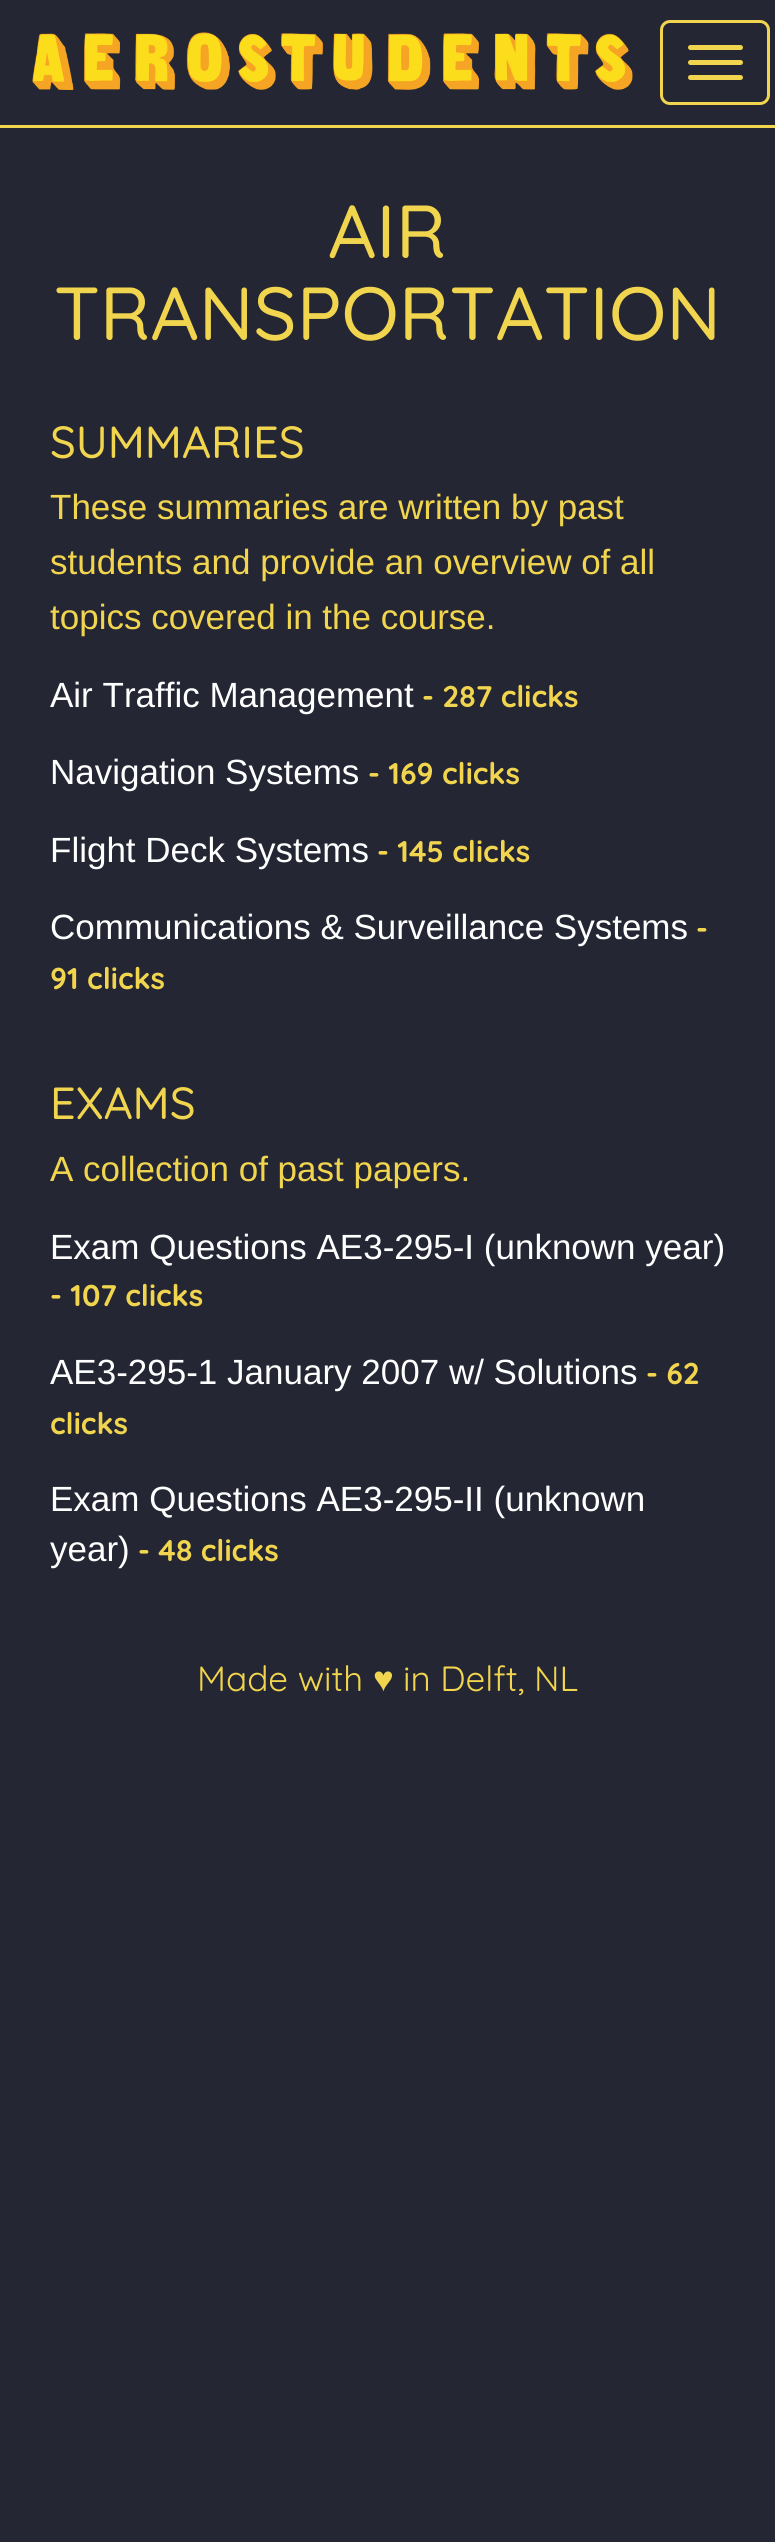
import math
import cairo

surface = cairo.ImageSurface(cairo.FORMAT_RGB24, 775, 2542)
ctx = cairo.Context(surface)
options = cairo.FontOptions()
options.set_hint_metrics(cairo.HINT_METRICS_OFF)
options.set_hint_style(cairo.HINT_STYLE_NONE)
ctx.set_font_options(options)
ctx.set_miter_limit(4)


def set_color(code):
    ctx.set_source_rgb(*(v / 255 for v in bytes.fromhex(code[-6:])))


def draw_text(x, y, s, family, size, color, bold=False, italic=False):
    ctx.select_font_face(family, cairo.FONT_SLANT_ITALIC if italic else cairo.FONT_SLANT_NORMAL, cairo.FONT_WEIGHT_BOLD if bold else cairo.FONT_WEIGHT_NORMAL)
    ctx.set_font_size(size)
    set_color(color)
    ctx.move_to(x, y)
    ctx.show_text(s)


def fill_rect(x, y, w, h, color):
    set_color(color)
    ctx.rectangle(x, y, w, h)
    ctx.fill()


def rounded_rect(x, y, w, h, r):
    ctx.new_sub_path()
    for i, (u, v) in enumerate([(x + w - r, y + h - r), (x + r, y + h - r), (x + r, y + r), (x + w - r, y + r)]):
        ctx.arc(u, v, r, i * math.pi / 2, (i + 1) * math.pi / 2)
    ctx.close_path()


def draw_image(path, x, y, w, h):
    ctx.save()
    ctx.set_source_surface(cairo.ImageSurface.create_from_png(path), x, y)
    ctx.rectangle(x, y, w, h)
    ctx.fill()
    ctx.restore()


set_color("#242633")
ctx.paint()
fill_rect(0, 125, 775, 3, "#f1d54e")
draw_image("assets/img1.png", 32, 32, 601, 58)
rounded_rect(661.5, 21.5, 107, 82, 8.5)
ctx.set_line_width(3)
ctx.stroke()
rounded_rect(688, 45, 55, 5, 2.5)
ctx.fill()
rounded_rect(688, 60, 55, 5, 2.5)
ctx.fill()
rounded_rect(688, 75, 55, 5, 2.5)
ctx.fill()
draw_text(328, 258, "AIR", "Quicksand Medium", 75, "#f1d54e")
draw_text(54, 340, "TRANSPORTATION", "Quicksand Medium", 75, "#f1d54e")
draw_text(50, 458, "SUMMARIES", "Quicksand Medium", 45, "#f1d54e")
draw_text(50, 519, "These summaries are written by past", "Liberation Sans", 35, "#f1d54e")
draw_text(50, 574, "students and provide an overview of all", "Liberation Sans", 35, "#f1d54e")
draw_text(50, 629, "topics covered in the course.", "Liberation Sans", 35, "#f1d54e")
draw_text(50, 707, "Air Traffic Management", "Liberation Sans", 35, "#ffffff")
draw_text(422, 707, "- 287 clicks", "Quicksand", 30, "#f1d54e", bold=True)
draw_text(50, 784, "Navigation Systems", "Liberation Sans", 35, "#ffffff")
draw_text(368, 784, "- 169 clicks", "Quicksand", 30, "#f1d54e", bold=True)
draw_text(50, 862, "Flight Deck Systems", "Liberation Sans", 35, "#ffffff")
draw_text(377, 862, "- 145 clicks", "Quicksand", 30, "#f1d54e", bold=True)
draw_text(50, 939, "Communications & Surveillance Systems", "Liberation Sans", 35, "#ffffff")
draw_text(696, 939, "-", "Quicksand", 30, "#f1d54e", bold=True)
draw_text(50, 989, "91 clicks", "Quicksand", 30, "#f1d54e", bold=True)
draw_text(50, 1119, "EXAMS", "Quicksand Medium", 45, "#f1d54e")
draw_text(50, 1181, "A collection of past papers.", "Liberation Sans", 35, "#f1d54e")
draw_text(50, 1259, "Exam Questions AE3-295-I (unknown year)", "Liberation Sans", 35, "#ffffff")
draw_text(50, 1306, "- 107 clicks", "Quicksand", 30, "#f1d54e", bold=True)
draw_text(50, 1384, "AE3-295-1 January 2007 w/ Solutions", "Liberation Sans", 35, "#ffffff")
draw_text(646, 1384, "- 62", "Quicksand", 30, "#f1d54e", bold=True)
draw_text(50, 1434, "clicks", "Quicksand", 30, "#f1d54e", bold=True)
draw_text(50, 1511, "Exam Questions AE3-295-II (unknown", "Liberation Sans", 35, "#ffffff")
draw_text(50, 1561, "year)", "Liberation Sans", 35, "#ffffff")
draw_text(138, 1561, "- 48 clicks", "Quicksand", 30, "#f1d54e", bold=True)
draw_text(197, 1691, "Made with", "Quicksand", 35, "#f1d54e")
draw_text(373, 1691, "♥", "Liberation Sans", 35, "#f1d54e")
draw_text(403, 1691, "in Delft, NL", "Quicksand", 35, "#f1d54e")
surface.write_to_png("output.png")
